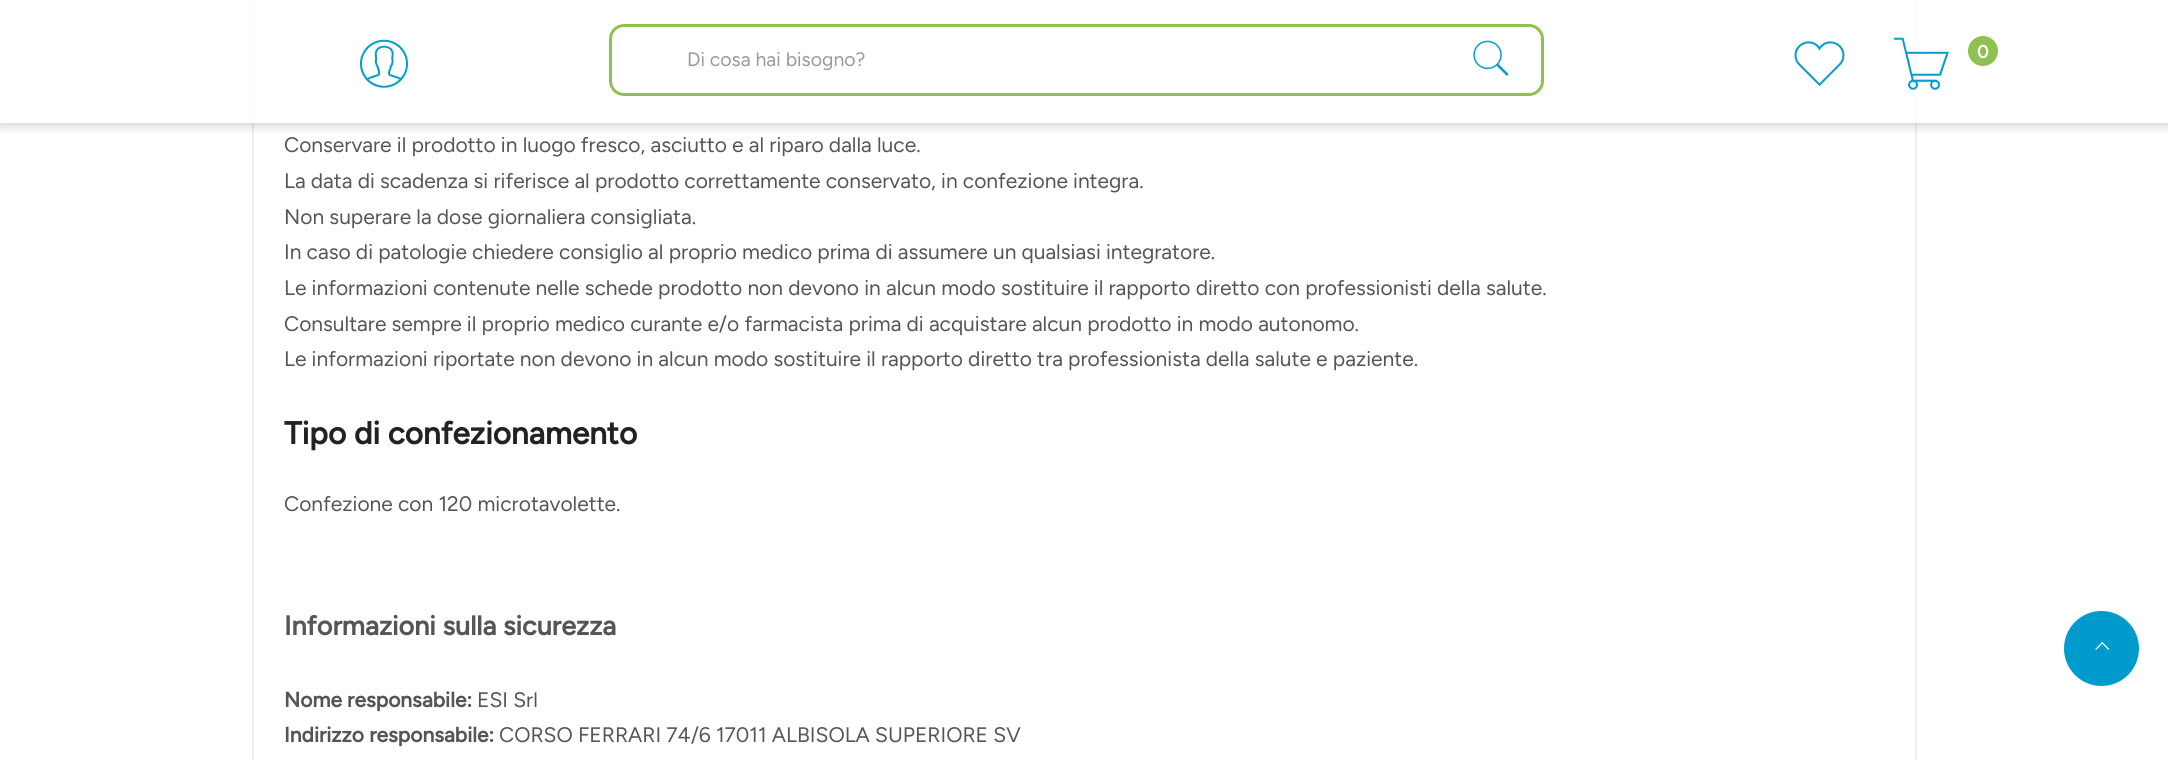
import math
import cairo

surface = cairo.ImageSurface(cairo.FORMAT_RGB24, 2168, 760)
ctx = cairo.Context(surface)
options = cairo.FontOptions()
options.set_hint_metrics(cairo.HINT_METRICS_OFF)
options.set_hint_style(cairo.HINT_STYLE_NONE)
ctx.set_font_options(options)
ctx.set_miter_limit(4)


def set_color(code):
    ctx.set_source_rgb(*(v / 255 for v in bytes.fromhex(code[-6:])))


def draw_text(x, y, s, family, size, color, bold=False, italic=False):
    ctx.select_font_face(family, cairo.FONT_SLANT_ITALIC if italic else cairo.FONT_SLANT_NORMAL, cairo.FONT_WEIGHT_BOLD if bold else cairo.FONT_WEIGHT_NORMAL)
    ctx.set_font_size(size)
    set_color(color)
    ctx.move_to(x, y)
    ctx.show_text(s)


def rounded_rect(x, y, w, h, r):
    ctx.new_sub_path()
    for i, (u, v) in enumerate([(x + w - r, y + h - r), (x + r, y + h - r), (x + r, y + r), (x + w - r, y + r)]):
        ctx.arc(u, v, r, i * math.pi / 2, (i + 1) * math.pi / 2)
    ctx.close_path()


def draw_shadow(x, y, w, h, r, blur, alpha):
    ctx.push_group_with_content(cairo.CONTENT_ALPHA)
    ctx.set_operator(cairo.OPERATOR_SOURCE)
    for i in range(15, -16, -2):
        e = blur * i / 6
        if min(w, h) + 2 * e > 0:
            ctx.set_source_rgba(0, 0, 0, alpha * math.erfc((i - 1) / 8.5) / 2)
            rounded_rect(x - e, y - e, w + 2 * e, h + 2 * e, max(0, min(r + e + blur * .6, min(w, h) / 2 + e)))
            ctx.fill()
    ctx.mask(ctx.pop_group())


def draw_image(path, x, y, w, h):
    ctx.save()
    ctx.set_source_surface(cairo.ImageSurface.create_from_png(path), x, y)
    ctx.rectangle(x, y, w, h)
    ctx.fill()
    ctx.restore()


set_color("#ffffff")
ctx.paint()
ctx.rectangle(253, -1, 1663, 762)
set_color("#efefef")
ctx.stroke()
ctx.save()
ctx.rectangle(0, 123, 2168, 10)
ctx.clip()
set_color("#000000")
draw_shadow(-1, -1, 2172, 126, 0, 6, 0.2)
ctx.restore()
ctx.set_source_rgba(1, 1, 1, 0.8)
ctx.rectangle(252, 0, 1665, 123)
ctx.fill()
draw_image("assets/img1.png", 360, 39, 48, 49)
rounded_rect(610.5, 25.5, 932, 69, 13.5)
set_color("#8ec152")
ctx.set_line_width(3)
ctx.stroke()
draw_text(687, 66, "Di cosa hai bisogno?", "Figtree", 19.5, "#999999")
draw_image("assets/img2.png", 1473, 40, 36, 36)
draw_image("assets/img3.png", 1794, 41, 51, 45)
draw_image("assets/img4.png", 1894, 37, 55, 53)
set_color("#8ec152")
ctx.arc(1983, 51, 15, 0, 2 * math.pi)
ctx.fill()
draw_text(1977, 58, "0", "Figtree", 18, "#ffffff", bold=True)
draw_text(284, 152, "Conservare il prodotto in luogo fresco, asciutto e al riparo dalla luce.", "Figtree", 21, "#555555")
draw_text(284, 188, "La data di scadenza si riferisce al prodotto correttamente conservato, in confezione integra.", "Figtree", 21, "#555555")
draw_text(284, 224, "Non superare la dose giornaliera consigliata.", "Figtree", 21, "#555555")
draw_text(284, 259, "In caso di patologie chiedere consiglio al proprio medico prima di assumere un qualsiasi integratore.", "Figtree", 21, "#555555")
draw_text(284, 295, "Le informazioni contenute nelle schede prodotto non devono in alcun modo sostituire il rapporto diretto con professionisti della salute.", "Figtree", 21, "#555555")
draw_text(284, 331, "Consultare sempre il proprio medico curante e/o farmacista prima di acquistare alcun prodotto in modo autonomo.", "Figtree", 21, "#555555")
draw_text(284, 366, "Le informazioni riportate non devono in alcun modo sostituire il rapporto diretto tra professionista della salute e paziente.", "Figtree", 21, "#555555")
draw_text(284, 444, "Tipo di confezionamento", "Figtree", 31.5, "#222222", bold=True)
draw_text(284, 511, "Confezione con 120 microtavolette.", "Figtree", 21, "#555555")
draw_text(284, 635, "Informazioni sulla sicurezza", "Figtree", 27, "#555555", bold=True)
draw_text(284, 707, "Nome responsabile:", "Figtree", 21, "#555555", bold=True)
draw_text(477, 707, "ESI Srl", "Figtree", 21, "#555555")
draw_text(284, 742, "Indirizzo responsabile:", "Figtree", 21, "#555555", bold=True)
draw_text(499, 742, "CORSO FERRARI 74/6 17011 ALBISOLA SUPERIORE SV", "Figtree", 21, "#555555")
set_color("#009bcd")
ctx.new_path()
ctx.arc(2101.5, 648.5, 37.5, 0, 2 * math.pi)
ctx.fill()
draw_image("assets/img5.png", 2095, 642, 15, 8)
surface.write_to_png("output.png")
